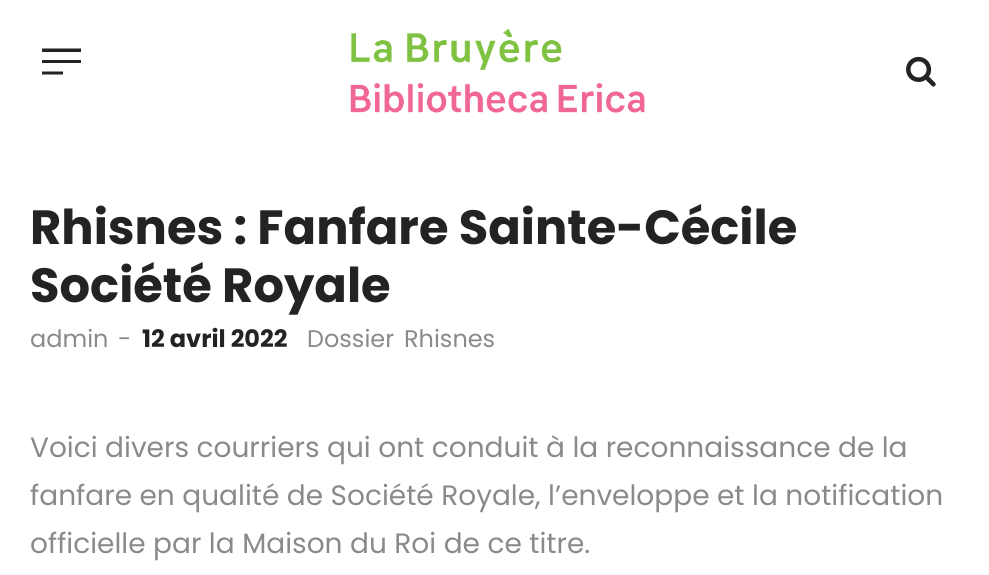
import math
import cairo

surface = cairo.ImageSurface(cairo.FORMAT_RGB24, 989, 575)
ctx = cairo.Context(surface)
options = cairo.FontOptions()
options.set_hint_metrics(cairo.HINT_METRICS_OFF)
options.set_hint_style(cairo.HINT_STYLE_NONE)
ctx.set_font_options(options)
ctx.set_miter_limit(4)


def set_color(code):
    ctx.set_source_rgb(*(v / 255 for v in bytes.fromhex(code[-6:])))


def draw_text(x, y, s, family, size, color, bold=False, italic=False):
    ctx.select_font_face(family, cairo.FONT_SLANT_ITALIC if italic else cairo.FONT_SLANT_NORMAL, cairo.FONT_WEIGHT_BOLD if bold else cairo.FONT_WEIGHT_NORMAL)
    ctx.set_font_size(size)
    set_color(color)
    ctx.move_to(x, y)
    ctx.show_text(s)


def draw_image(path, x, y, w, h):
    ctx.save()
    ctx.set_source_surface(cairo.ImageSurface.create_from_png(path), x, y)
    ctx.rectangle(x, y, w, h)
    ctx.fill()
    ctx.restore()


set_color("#ffffff")
ctx.paint()
set_color("#232324")
ctx.new_path()
ctx.move_to(42, 60)
ctx.line_to(81, 60)
ctx.line_to(81, 63)
ctx.line_to(42, 63)
ctx.close_path()
ctx.move_to(42, 48.5)
ctx.line_to(81, 48.5)
ctx.line_to(81, 52)
ctx.line_to(42, 52)
ctx.close_path()
ctx.move_to(42, 71.5)
ctx.line_to(63, 71.5)
ctx.line_to(63, 74.5)
ctx.line_to(42, 74.5)
ctx.close_path()
ctx.fill()
draw_image("assets/img1.png", 350, 28, 295, 85)
draw_image("assets/img2.png", 906, 56, 30, 31)
draw_text(30, 244, "Rhisnes : Fanfare Sainte-Cécile", "Poppins", 48, "#232324", bold=True)
draw_text(30, 302, "Société Royale", "Poppins", 48, "#232324", bold=True)
draw_text(30, 347, "admin", "Poppins", 24, "#8a8a8a")
draw_text(118, 347, "-", "Poppins", 24, "#8a8a8a")
draw_text(142, 347, "12 avril 2022", "Poppins", 24, "#232324", bold=True)
draw_text(307, 347, "Dossier", "Poppins", 24, "#8a8a8a")
draw_text(404, 347, "Rhisnes", "Poppins", 24, "#8a8a8a")
draw_text(30, 457, "Voici divers courriers qui ont conduit à la reconnaissance de la", "Poppins", 28, "#8a8a8a")
draw_text(30, 505, "fanfare en qualité de Société Royale, l’enveloppe et la notification", "Poppins", 28, "#8a8a8a")
draw_text(30, 553, "officielle par la Maison du Roi de ce titre.", "Poppins", 28, "#8a8a8a")
surface.write_to_png("output.png")
